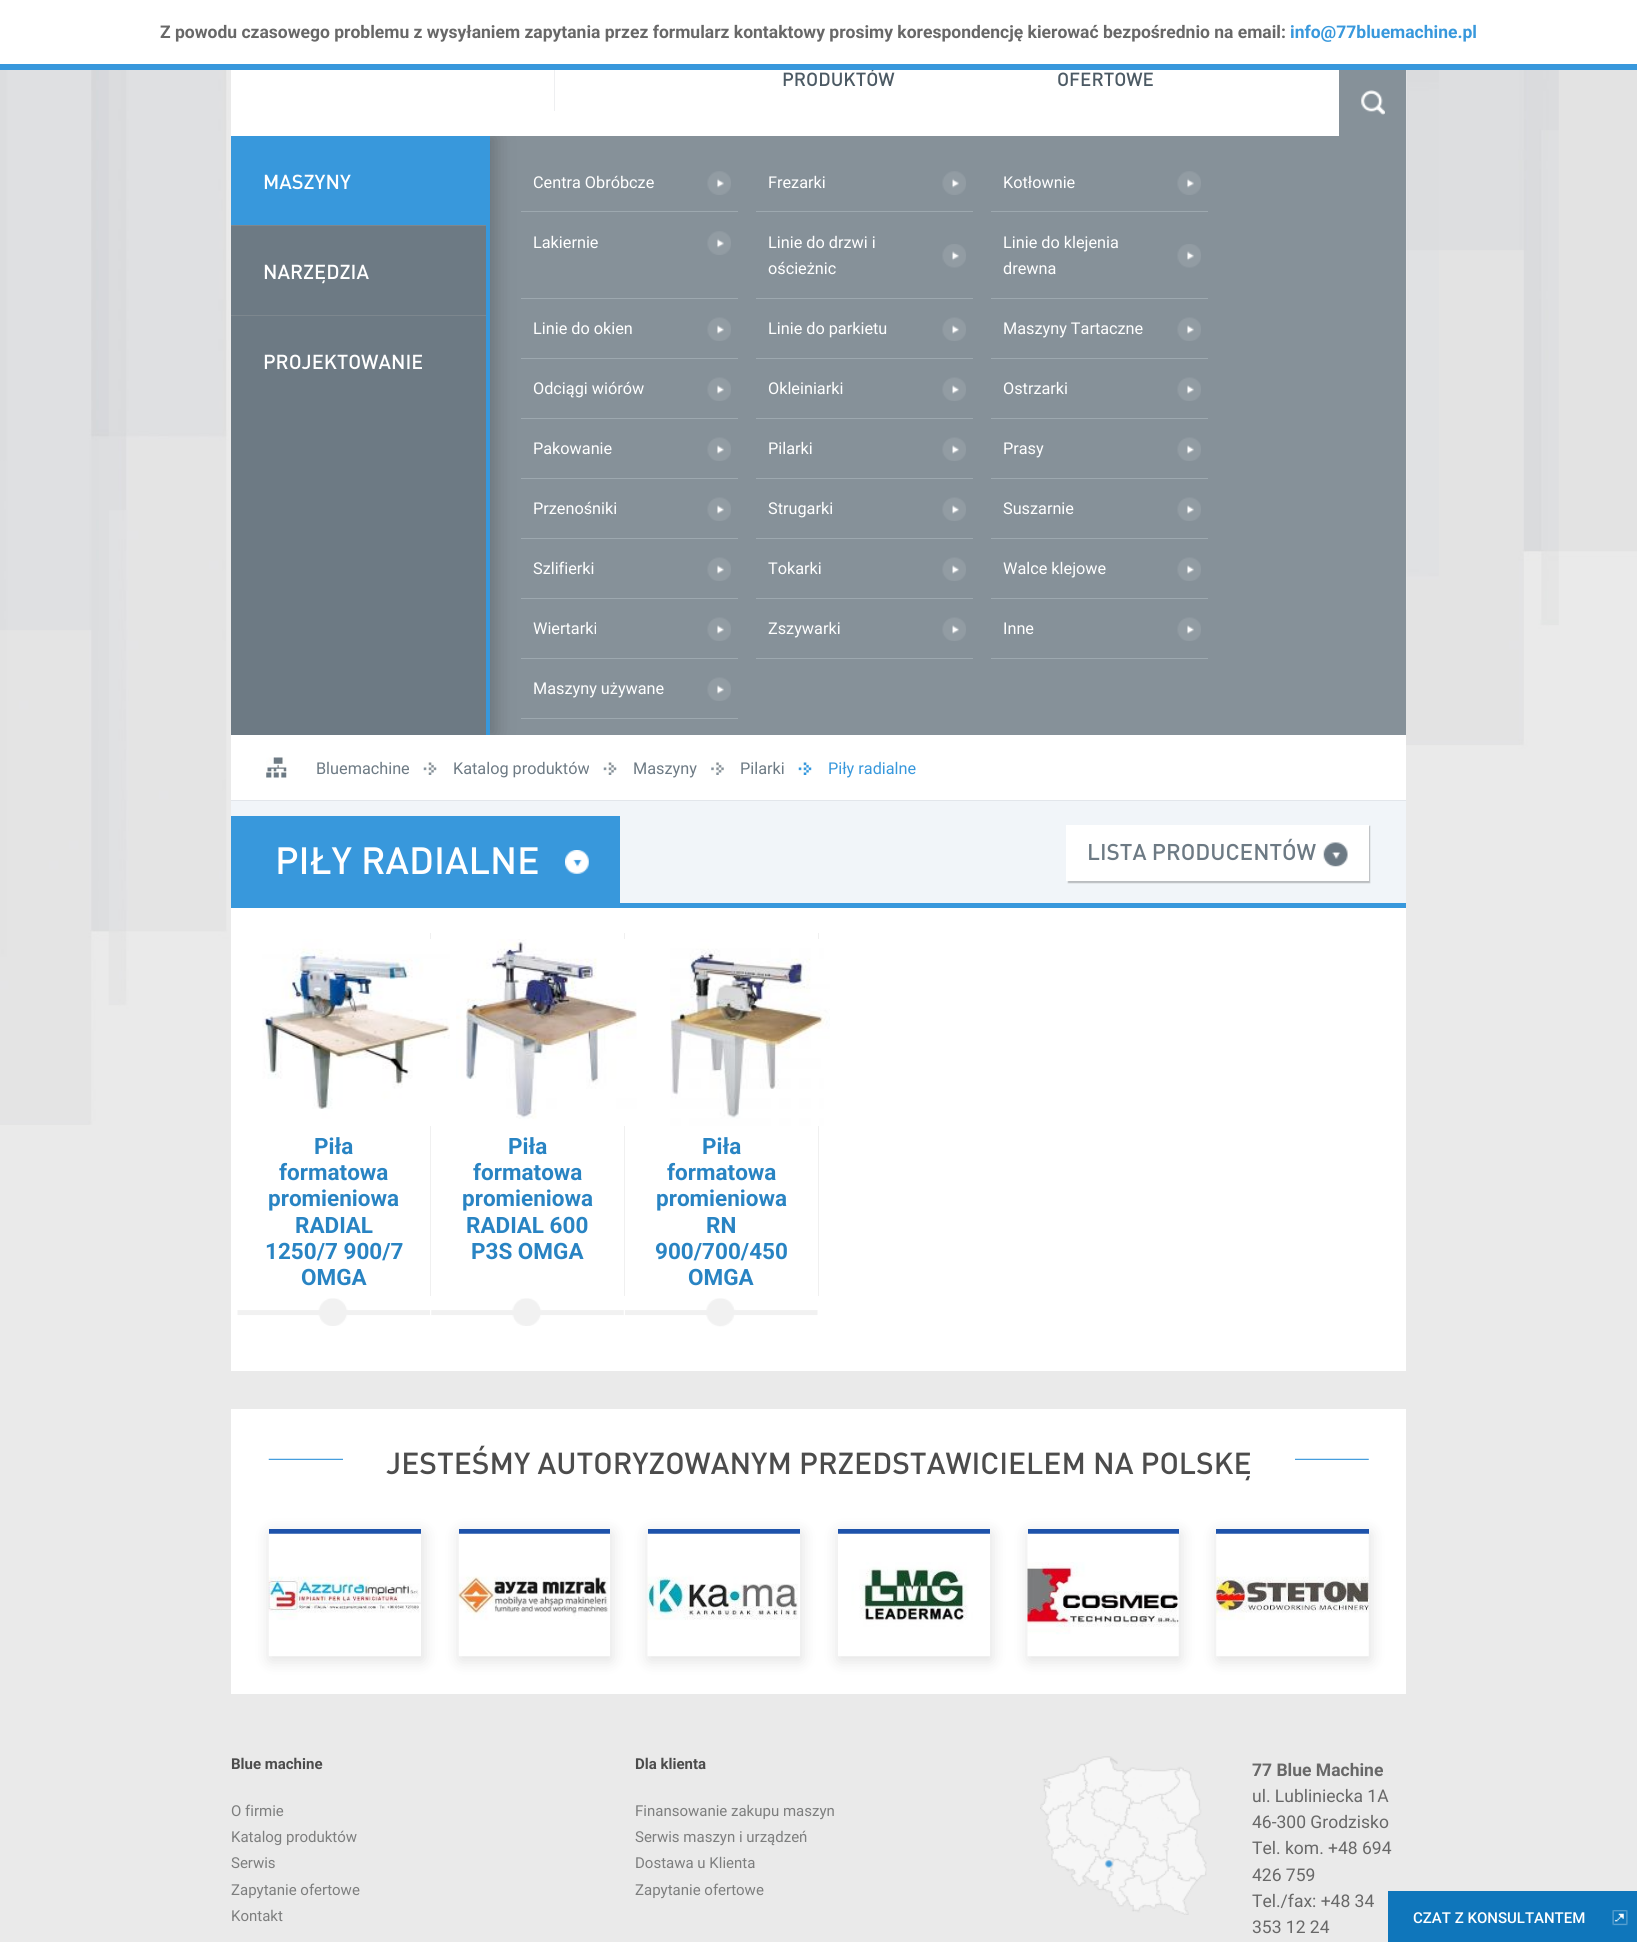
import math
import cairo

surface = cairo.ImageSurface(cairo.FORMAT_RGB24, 1637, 1942)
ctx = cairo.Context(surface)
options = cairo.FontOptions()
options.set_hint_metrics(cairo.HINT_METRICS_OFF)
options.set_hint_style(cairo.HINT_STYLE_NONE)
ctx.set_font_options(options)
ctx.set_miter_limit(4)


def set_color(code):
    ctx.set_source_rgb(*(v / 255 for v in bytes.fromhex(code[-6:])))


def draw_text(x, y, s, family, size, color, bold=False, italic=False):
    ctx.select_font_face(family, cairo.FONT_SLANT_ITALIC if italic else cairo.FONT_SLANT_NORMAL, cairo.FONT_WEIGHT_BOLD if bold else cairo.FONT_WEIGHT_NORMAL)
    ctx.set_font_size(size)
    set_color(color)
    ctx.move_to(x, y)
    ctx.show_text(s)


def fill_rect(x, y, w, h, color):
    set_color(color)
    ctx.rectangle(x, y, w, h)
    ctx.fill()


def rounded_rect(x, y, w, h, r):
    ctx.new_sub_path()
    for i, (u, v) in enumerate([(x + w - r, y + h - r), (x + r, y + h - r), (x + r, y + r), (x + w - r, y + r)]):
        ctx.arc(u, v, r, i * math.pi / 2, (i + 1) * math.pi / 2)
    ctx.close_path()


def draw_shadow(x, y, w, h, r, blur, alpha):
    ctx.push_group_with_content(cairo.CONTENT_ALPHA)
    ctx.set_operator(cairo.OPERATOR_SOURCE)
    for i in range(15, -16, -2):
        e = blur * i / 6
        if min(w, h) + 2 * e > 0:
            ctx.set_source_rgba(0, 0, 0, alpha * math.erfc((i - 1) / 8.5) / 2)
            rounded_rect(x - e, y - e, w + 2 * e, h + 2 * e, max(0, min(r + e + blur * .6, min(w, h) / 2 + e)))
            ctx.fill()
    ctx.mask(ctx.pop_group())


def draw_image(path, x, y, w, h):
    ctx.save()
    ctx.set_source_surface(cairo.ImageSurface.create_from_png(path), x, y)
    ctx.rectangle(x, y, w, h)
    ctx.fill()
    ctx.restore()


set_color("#eaeaea")
ctx.paint()
draw_image("assets/img1.png", 0, 70, 1637, 1055)
fill_rect(0, 0, 1637, 64, "#ffffff")
fill_rect(231, 70, 1108, 66, "#ffffff")
draw_text(782, 86, "PRODUKTÓW", "DIN Medium", 18.75, "#4c5a64")
fill_rect(0, 64, 1637, 6, "#3898dc")
draw_text(160, 38, "Z powodu czasowego problemu z wysyłaniem zapytania przez formularz kontaktowy prosimy korespondencję kierować bezpośrednio na email:", "Roboto", 17.5, "#686868", bold=True)
draw_text(1290, 38, "info@77bluemachine.pl", "Roboto", 17.5, "#3898dc", bold=True)
fill_rect(554, 70, 1, 41, "#eeeff1")
draw_text(1057, 86, "OFERTOWE", "DIN Medium", 18.75, "#4c5a64")
fill_rect(1339, 70, 67, 66, "#869199")
draw_image("assets/img2.png", 1361, 90, 24, 25)
fill_rect(490, 136, 916, 599, "#869199")
fill_rect(231, 735, 1175, 65, "#ffffff")
draw_image("assets/img9.png", 266, 757, 21, 21)
draw_image("assets/img10.png", 423, 762, 14, 13)
ctx.save()
ctx.rectangle(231, 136, 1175, 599)
ctx.clip()
set_color("#000000")
draw_shadow(238, 136, 258, 599, 0, 9.5, 0.2)
ctx.restore()
fill_rect(231, 226, 255, 509, "#6d7a84")
fill_rect(486, 136, 4, 599, "#3898dc")
fill_rect(231, 225, 255, 1, "#7d878e")
fill_rect(231, 136, 255, 89, "#3898dc")
draw_text(263, 189, "MASZYNY", "DIN Medium", 20, "#ffffff")
fill_rect(231, 315, 255, 1, "#7d878e")
draw_text(263, 279, "NARZĘDZIA", "DIN Medium", 20, "#ffffff")
draw_text(263, 369, "PROJEKTOWANIE", "DIN Medium", 20, "#ffffff")
fill_rect(521, 211, 217, 1, "#9da8af")
draw_text(533, 188, "Centra Obróbcze", "Roboto", 16.25, "#ffffff")
draw_image("assets/img3.png", 707, 171, 24, 24)
fill_rect(756, 211, 217, 1, "#9da8af")
draw_text(768, 188, "Frezarki", "Roboto", 16.25, "#ffffff")
draw_image("assets/img4.png", 942, 171, 24, 24)
fill_rect(991, 211, 217, 1, "#9da8af")
draw_text(1003, 188, "Kotłownie", "Roboto", 16.25, "#ffffff")
draw_image("assets/img3.png", 1177, 171, 24, 24)
fill_rect(521, 298, 217, 1, "#9da8af")
draw_text(533, 248, "Lakiernie", "Roboto", 16.25, "#ffffff")
draw_image("assets/img3.png", 707, 231, 24, 24)
fill_rect(756, 298, 217, 1, "#9da8af")
draw_text(768, 248, "Linie do drzwi i", "Roboto", 16.25, "#ffffff")
draw_text(768, 274, "ościeżnic", "Roboto", 16.25, "#ffffff")
draw_image("assets/img5.png", 942, 244, 24, 24)
fill_rect(991, 298, 217, 1, "#9da8af")
draw_text(1003, 248, "Linie do klejenia", "Roboto", 16.25, "#ffffff")
draw_image("assets/img6.png", 1177, 244, 24, 24)
draw_text(1003, 274, "drewna", "Roboto", 16.25, "#ffffff")
fill_rect(521, 358, 217, 1, "#9da8af")
draw_text(533, 334, "Linie do okien", "Roboto", 16.25, "#ffffff")
draw_image("assets/img7.png", 707, 317, 24, 24)
fill_rect(756, 358, 217, 1, "#9da8af")
draw_text(768, 334, "Linie do parkietu", "Roboto", 16.25, "#ffffff")
draw_image("assets/img8.png", 942, 317, 24, 24)
fill_rect(991, 358, 217, 1, "#9da8af")
draw_text(1003, 334, "Maszyny Tartaczne", "Roboto", 16.25, "#ffffff")
draw_image("assets/img7.png", 1177, 317, 24, 24)
fill_rect(521, 418, 217, 1, "#9da8af")
draw_text(533, 394, "Odciągi wiórów", "Roboto", 16.25, "#ffffff")
draw_image("assets/img7.png", 707, 377, 24, 24)
fill_rect(756, 418, 217, 1, "#9da8af")
draw_text(768, 394, "Okleiniarki", "Roboto", 16.25, "#ffffff")
draw_image("assets/img8.png", 942, 377, 24, 24)
fill_rect(991, 418, 217, 1, "#9da8af")
draw_text(1003, 394, "Ostrzarki", "Roboto", 16.25, "#ffffff")
draw_image("assets/img7.png", 1177, 377, 24, 24)
fill_rect(521, 478, 217, 1, "#9da8af")
draw_text(533, 454, "Pakowanie", "Roboto", 16.25, "#ffffff")
draw_image("assets/img7.png", 707, 437, 24, 24)
fill_rect(756, 478, 217, 1, "#9da8af")
draw_text(768, 454, "Pilarki", "Roboto", 16.25, "#ffffff")
draw_image("assets/img8.png", 942, 437, 24, 24)
fill_rect(991, 478, 217, 1, "#9da8af")
draw_text(1003, 454, "Prasy", "Roboto", 16.25, "#ffffff")
draw_image("assets/img7.png", 1177, 437, 24, 24)
fill_rect(521, 538, 217, 1, "#9da8af")
draw_text(533, 514, "Przenośniki", "Roboto", 16.25, "#ffffff")
draw_image("assets/img7.png", 707, 497, 24, 24)
fill_rect(756, 538, 217, 1, "#9da8af")
draw_text(768, 514, "Strugarki", "Roboto", 16.25, "#ffffff")
draw_image("assets/img8.png", 942, 497, 24, 24)
fill_rect(991, 538, 217, 1, "#9da8af")
draw_text(1003, 514, "Suszarnie", "Roboto", 16.25, "#ffffff")
draw_image("assets/img7.png", 1177, 497, 24, 24)
fill_rect(521, 598, 217, 1, "#9da8af")
draw_text(533, 574, "Szlifierki", "Roboto", 16.25, "#ffffff")
draw_image("assets/img7.png", 707, 557, 24, 24)
fill_rect(756, 598, 217, 1, "#9da8af")
draw_text(768, 574, "Tokarki", "Roboto", 16.25, "#ffffff")
draw_image("assets/img8.png", 942, 557, 24, 24)
fill_rect(991, 598, 217, 1, "#9da8af")
draw_text(1003, 574, "Walce klejowe", "Roboto", 16.25, "#ffffff")
draw_image("assets/img7.png", 1177, 557, 24, 24)
fill_rect(521, 658, 217, 1, "#9da8af")
draw_text(533, 634, "Wiertarki", "Roboto", 16.25, "#ffffff")
draw_image("assets/img7.png", 707, 617, 24, 24)
fill_rect(756, 658, 217, 1, "#9da8af")
draw_text(768, 634, "Zszywarki", "Roboto", 16.25, "#ffffff")
draw_image("assets/img8.png", 942, 617, 24, 24)
fill_rect(991, 658, 217, 1, "#9da8af")
draw_text(1003, 634, "Inne", "Roboto", 16.25, "#ffffff")
draw_image("assets/img7.png", 1177, 617, 24, 24)
fill_rect(521, 718, 217, 1, "#9da8af")
draw_text(533, 694, "Maszyny używane", "Roboto", 16.25, "#ffffff")
draw_image("assets/img7.png", 707, 677, 24, 24)
fill_rect(231, 800, 1175, 1, "#e2e6eb")
draw_text(316, 774, "Bluemachine", "Roboto", 16.25, "#6d7a84")
draw_text(453, 774, "Katalog produktów", "Roboto", 16.25, "#6d7a84")
draw_image("assets/img10.png", 603, 762, 14, 13)
draw_text(633, 774, "Maszyny", "Roboto", 16.25, "#6d7a84")
draw_image("assets/img11.png", 711, 762, 13, 13)
draw_text(740, 774, "Pilarki", "Roboto", 16.25, "#6d7a84")
draw_image("assets/img12.png", 798, 762, 14, 13)
draw_text(828, 774, "Piły radialne", "Roboto", 16.25, "#3898dc")
fill_rect(231, 801, 1175, 102, "#f1f5f9")
fill_rect(231, 903, 1175, 5, "#3898dc")
fill_rect(231, 816, 389, 87, "#3898dc")
draw_text(275, 874, "PIŁY RADIALNE", "DIN Medium", 37.5, "#ffffff")
draw_image("assets/img13.png", 565, 850, 24, 24)
set_color("#000000")
draw_shadow(1068, 826, 302, 57, 0, 0.5, 0.23)
fill_rect(1066, 825, 303, 56, "#ffffff")
draw_text(1087, 860, "LISTA PRODUCENTÓW", "DIN Medium", 22.5, "#6d7a84")
draw_image("assets/img14.png", 1323, 842, 25, 25)
fill_rect(231, 908, 1175, 463, "#ffffff")
fill_rect(430, 933, 1, 363, "#f0f0f0")
draw_image("assets/img15.png", 262, 939, 188, 187)
draw_text(314, 1154, "Piła", "Roboto", 22.5, "#2984c3", bold=True)
draw_text(279, 1180, "formatowa", "Roboto", 22.5, "#2984c3", bold=True)
draw_text(268, 1206, "promieniowa", "Roboto", 22.5, "#2984c3", bold=True)
draw_text(295, 1233, "RADIAL", "Roboto", 22.5, "#2984c3", bold=True)
draw_text(265, 1259, "1250/7 900/7", "Roboto", 22.5, "#2984c3", bold=True)
draw_text(301, 1285, "OMGA", "Roboto", 22.5, "#2984c3", bold=True)
draw_image("assets/img16.png", 237, 1298, 193, 28)
fill_rect(624, 933, 1, 363, "#f0f0f0")
draw_image("assets/img17.png", 456, 939, 181, 187)
draw_text(508, 1154, "Piła", "Roboto", 22.5, "#2984c3", bold=True)
draw_text(473, 1180, "formatowa", "Roboto", 22.5, "#2984c3", bold=True)
draw_text(462, 1206, "promieniowa", "Roboto", 22.5, "#2984c3", bold=True)
draw_text(466, 1233, "RADIAL 600", "Roboto", 22.5, "#2984c3", bold=True)
draw_text(471, 1259, "P3S OMGA", "Roboto", 22.5, "#2984c3", bold=True)
draw_image("assets/img18.png", 431, 1298, 193, 28)
fill_rect(818, 933, 1, 363, "#f0f0f0")
draw_image("assets/img19.png", 670, 939, 160, 187)
draw_text(702, 1154, "Piła", "Roboto", 22.5, "#2984c3", bold=True)
draw_text(667, 1180, "formatowa", "Roboto", 22.5, "#2984c3", bold=True)
draw_text(656, 1206, "promieniowa", "Roboto", 22.5, "#2984c3", bold=True)
draw_text(706, 1233, "RN", "Roboto", 22.5, "#2984c3", bold=True)
draw_text(655, 1259, "900/700/450", "Roboto", 22.5, "#2984c3", bold=True)
draw_text(688, 1285, "OMGA", "Roboto", 22.5, "#2984c3", bold=True)
draw_image("assets/img20.png", 625, 1298, 193, 29)
fill_rect(231, 1409, 1175, 285, "#ffffff")
draw_image("assets/img21.png", 268, 1458, 1101, 2)
fill_rect(343, 1458, 952, 2, "#ffffff")
draw_text(386, 1474, "JESTEŚMY AUTORYZOWANYM PRZEDSTAWICIELEM NA POLSKĘ", "DIN Medium", 30, "#4c4c4c")
set_color("#000000")
draw_shadow(270, 1533, 153, 127, 0, 8, 0.13)
fill_rect(269, 1529, 152, 5, "#1e53ab")
draw_image("assets/img22.png", 268, 1533, 153, 124)
set_color("#000000")
draw_shadow(460, 1533, 151, 127, 0, 8, 0.13)
fill_rect(459, 1529, 151, 5, "#1e53ab")
draw_image("assets/img23.png", 458, 1533, 152, 124)
set_color("#000000")
draw_shadow(649, 1533, 152, 127, 0, 8, 0.13)
fill_rect(648, 1529, 152, 5, "#1e53ab")
draw_image("assets/img24.png", 647, 1533, 153, 124)
set_color("#000000")
draw_shadow(839, 1533, 152, 127, 0, 8, 0.13)
fill_rect(838, 1529, 152, 5, "#1e53ab")
draw_image("assets/img25.png", 838, 1533, 152, 124)
set_color("#000000")
draw_shadow(1029, 1533, 151, 127, 0, 8, 0.13)
fill_rect(1028, 1529, 151, 5, "#1e53ab")
draw_image("assets/img26.png", 1027, 1533, 152, 124)
set_color("#000000")
draw_shadow(1218, 1533, 152, 127, 0, 8, 0.13)
fill_rect(1216, 1529, 153, 5, "#1e53ab")
draw_image("assets/img27.png", 1216, 1533, 153, 124)
draw_text(231, 1769, "Blue machine", "Roboto", 15, "#4c4c4c", bold=True)
draw_text(231, 1816, "O firmie", "Roboto", 15, "#7d7e7e")
draw_text(231, 1842, "Katalog produktów", "Roboto", 15, "#7d7e7e")
draw_text(231, 1868, "Serwis", "Roboto", 15, "#7d7e7e")
draw_text(231, 1895, "Zapytanie ofertowe", "Roboto", 15, "#7d7e7e")
draw_text(231, 1921, "Kontakt", "Roboto", 15, "#7d7e7e")
draw_text(635, 1769, "Dla klienta", "Roboto", 15, "#4c4c4c", bold=True)
draw_text(635, 1816, "Finansowanie zakupu maszyn", "Roboto", 15, "#7d7e7e")
draw_text(635, 1842, "Serwis maszyn i urządzeń", "Roboto", 15, "#7d7e7e")
draw_text(635, 1868, "Dostawa u Klienta", "Roboto", 15, "#7d7e7e")
draw_text(635, 1895, "Zapytanie ofertowe", "Roboto", 15, "#7d7e7e")
draw_image("assets/img28.png", 1040, 1756, 167, 159)
draw_text(1252, 1776, "77 Blue Machine", "Roboto", 17.5, "#686868", bold=True)
draw_text(1252, 1802, "ul. Lubliniecka 1A", "Roboto", 17.5, "#686868")
draw_text(1252, 1828, "46-300 Grodzisko", "Roboto", 17.5, "#686868")
draw_text(1252, 1854, "Tel. kom. +48 694", "Roboto", 17.5, "#686868")
draw_text(1252, 1881, "426 759", "Roboto", 17.5, "#686868")
draw_text(1252, 1907, "Tel./fax: +48 34", "Roboto", 17.5, "#686868")
draw_text(1252, 1933, "353 12 24", "Roboto", 17.5, "#686868")
fill_rect(1388, 1891, 249, 51, "#0f76bb")
draw_image("assets/img29.png", 1612, 1910, 16, 16)
draw_text(1413, 1923, "CZAT Z KONSULTANTEM", "Roboto Medium", 15, "#ffffff")
surface.write_to_png("output.png")
